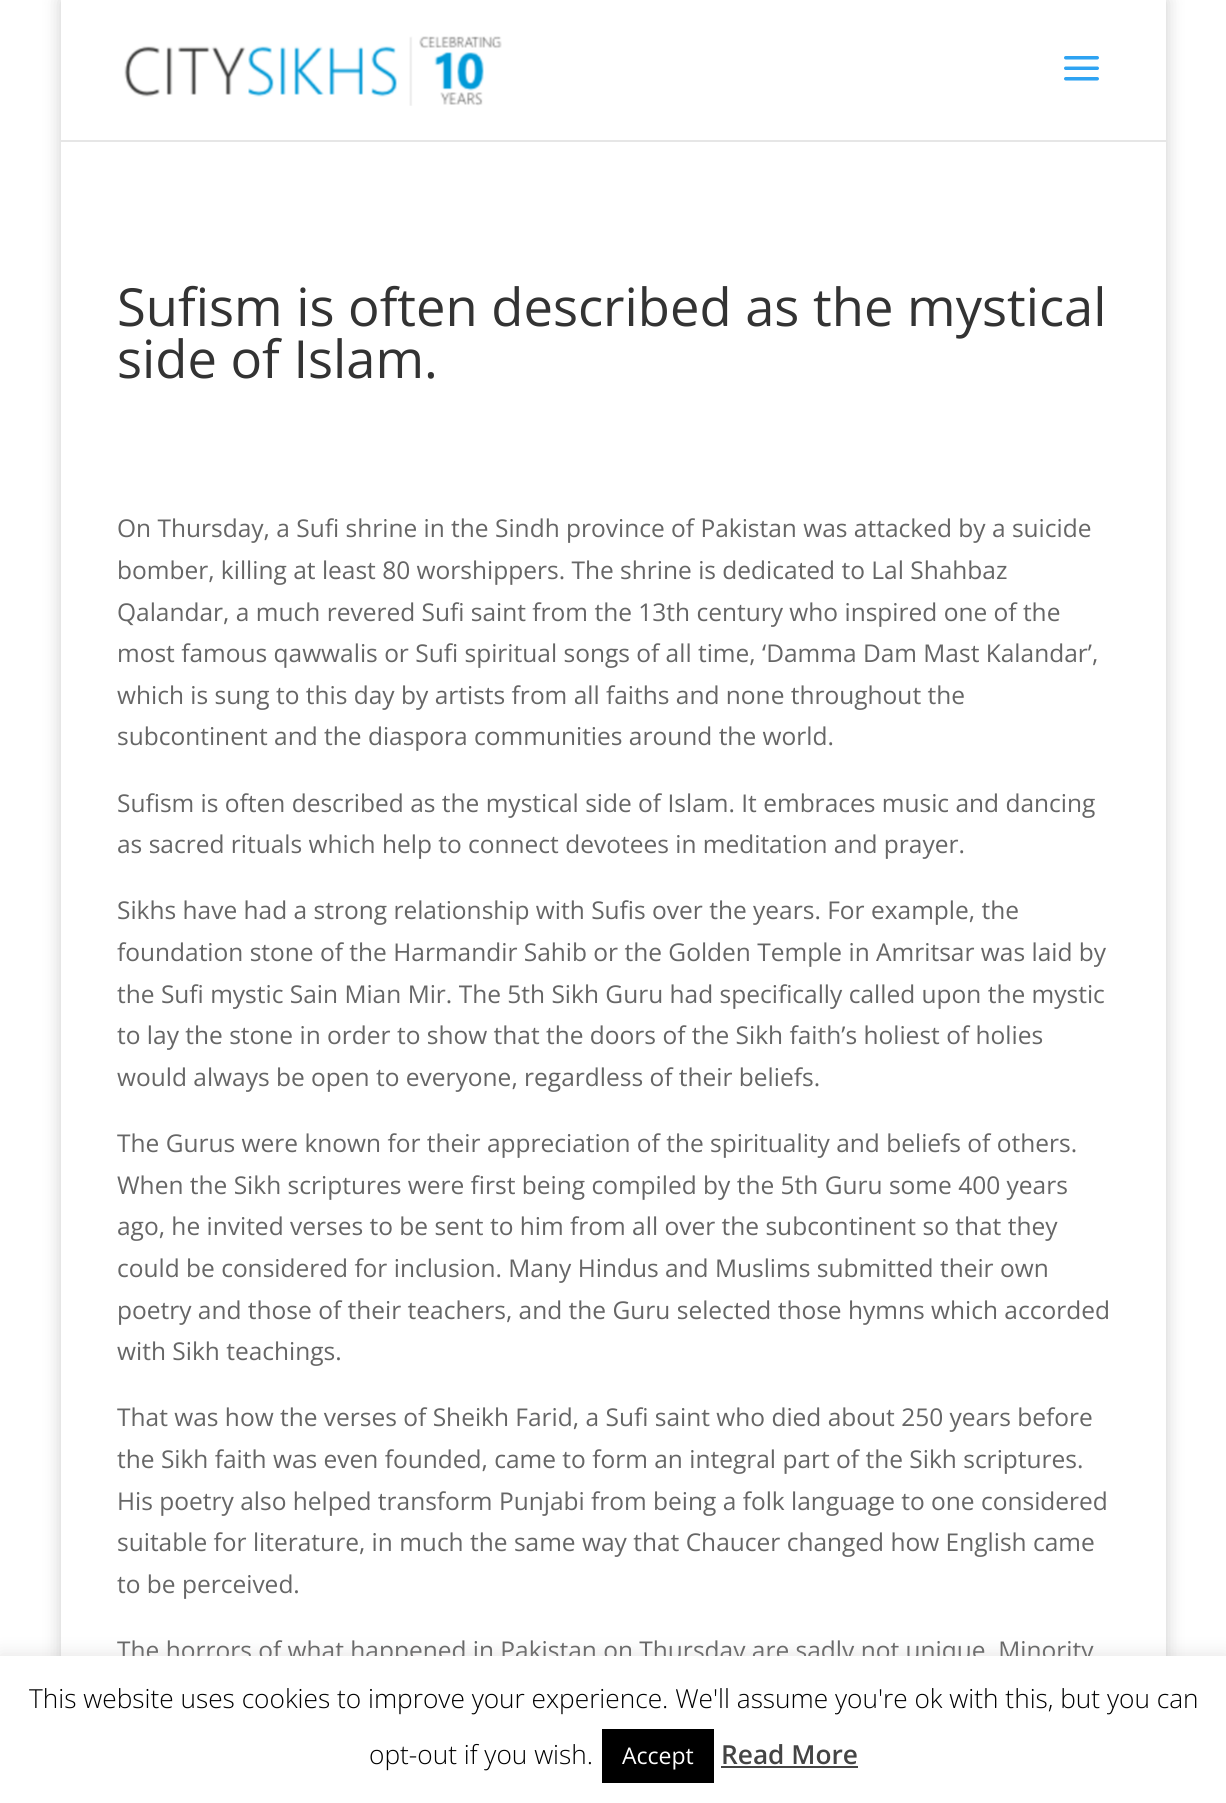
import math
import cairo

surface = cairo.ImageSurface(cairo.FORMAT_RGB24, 1226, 1803)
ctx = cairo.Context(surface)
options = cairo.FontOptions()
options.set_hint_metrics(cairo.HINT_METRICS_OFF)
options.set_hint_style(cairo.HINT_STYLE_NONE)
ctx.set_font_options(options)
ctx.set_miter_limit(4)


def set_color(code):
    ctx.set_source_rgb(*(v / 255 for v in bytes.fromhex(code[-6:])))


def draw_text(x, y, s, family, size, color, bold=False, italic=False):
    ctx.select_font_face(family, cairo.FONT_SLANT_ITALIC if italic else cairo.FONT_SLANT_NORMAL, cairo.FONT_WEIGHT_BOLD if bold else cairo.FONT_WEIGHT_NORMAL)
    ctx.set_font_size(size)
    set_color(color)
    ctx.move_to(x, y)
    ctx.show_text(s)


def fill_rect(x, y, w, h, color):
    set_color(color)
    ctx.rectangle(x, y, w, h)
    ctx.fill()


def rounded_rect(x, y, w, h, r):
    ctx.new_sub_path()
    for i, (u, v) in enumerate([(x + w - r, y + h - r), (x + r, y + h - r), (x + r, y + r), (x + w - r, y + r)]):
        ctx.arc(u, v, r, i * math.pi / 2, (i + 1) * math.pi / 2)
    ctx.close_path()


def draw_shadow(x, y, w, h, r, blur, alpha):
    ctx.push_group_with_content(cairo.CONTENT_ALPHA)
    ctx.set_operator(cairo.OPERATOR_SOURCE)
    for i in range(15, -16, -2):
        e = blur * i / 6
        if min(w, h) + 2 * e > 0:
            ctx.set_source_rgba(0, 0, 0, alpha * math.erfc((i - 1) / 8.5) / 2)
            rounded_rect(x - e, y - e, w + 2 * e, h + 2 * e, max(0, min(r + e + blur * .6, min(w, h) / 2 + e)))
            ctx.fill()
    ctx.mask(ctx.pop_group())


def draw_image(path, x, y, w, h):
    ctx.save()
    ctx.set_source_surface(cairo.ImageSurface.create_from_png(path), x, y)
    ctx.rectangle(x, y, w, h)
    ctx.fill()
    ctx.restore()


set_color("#ffffff")
ctx.paint()
set_color("#000000")
draw_shadow(61, 0, 1105, 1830, 0, 9, 0.2)
set_color("#e6e6e6")
ctx.new_path()
ctx.move_to(61, 2)
ctx.line_to(61, 142)
ctx.line_to(1166, 142)
ctx.line_to(1166, 2)
ctx.line_to(1166, 140)
ctx.line_to(61, 140)
ctx.close_path()
ctx.fill()
fill_rect(61, 0, 1105, 140, "#ffffff")
draw_image("assets/img1.png", 124, 36, 378, 70)
draw_image("assets/img2.png", 1064, 56, 35, 25)
fill_rect(61, 142, 1105, 1514, "#ffffff")
draw_text(117, 326, "Sufism is often described as the mystical", "Open Sans", 52.5, "#333333")
draw_text(117, 378, "side of Islam.", "Open Sans", 52.5, "#333333")
draw_text(117, 537, "On Thursday, a Sufi shrine in the Sindh province of Pakistan was attacked by a suicide", "Open Sans", 24.5, "#666666")
draw_text(117, 579, "bomber, killing at least 80 worshippers. The shrine is dedicated to Lal Shahbaz", "Open Sans", 24.5, "#666666")
draw_text(117, 621, "Qalandar, a much revered Sufi saint from the 13th century who inspired one of the", "Open Sans", 24.5, "#666666")
draw_text(117, 662, "most famous qawwalis or Sufi spiritual songs of all time, ‘Damma Dam Mast Kalandar’,", "Open Sans", 24.5, "#666666")
draw_text(117, 704, "which is sung to this day by artists from all faiths and none throughout the", "Open Sans", 24.5, "#666666")
draw_text(117, 745, "subcontinent and the diaspora communities around the world.", "Open Sans", 24.5, "#666666")
draw_text(117, 812, "Sufism is often described as the mystical side of Islam. It embraces music and dancing", "Open Sans", 24.5, "#666666")
draw_text(117, 853, "as sacred rituals which help to connect devotees in meditation and prayer.", "Open Sans", 24.5, "#666666")
draw_text(117, 919, "Sikhs have had a strong relationship with Sufis over the years. For example, the", "Open Sans", 24.5, "#666666")
draw_text(117, 961, "foundation stone of the Harmandir Sahib or the Golden Temple in Amritsar was laid by", "Open Sans", 24.5, "#666666")
draw_text(117, 1003, "the Sufi mystic Sain Mian Mir. The 5th Sikh Guru had specifically called upon the mystic", "Open Sans", 24.5, "#666666")
draw_text(117, 1044, "to lay the stone in order to show that the doors of the Sikh faith’s holiest of holies", "Open Sans", 24.5, "#666666")
draw_text(117, 1086, "would always be open to everyone, regardless of their beliefs.", "Open Sans", 24.5, "#666666")
draw_text(117, 1152, "The Gurus were known for their appreciation of the spirituality and beliefs of others.", "Open Sans", 24.5, "#666666")
draw_text(117, 1194, "When the Sikh scriptures were first being compiled by the 5th Guru some 400 years", "Open Sans", 24.5, "#666666")
draw_text(117, 1235, "ago, he invited verses to be sent to him from all over the subcontinent so that they", "Open Sans", 24.5, "#666666")
draw_text(117, 1277, "could be considered for inclusion. Many Hindus and Muslims submitted their own", "Open Sans", 24.5, "#666666")
draw_text(117, 1319, "poetry and those of their teachers, and the Guru selected those hymns which accorded", "Open Sans", 24.5, "#666666")
draw_text(117, 1360, "with Sikh teachings.", "Open Sans", 24.5, "#666666")
draw_text(117, 1426, "That was how the verses of Sheikh Farid, a Sufi saint who died about 250 years before", "Open Sans", 24.5, "#666666")
draw_text(117, 1468, "the Sikh faith was even founded, came to form an integral part of the Sikh scriptures.", "Open Sans", 24.5, "#666666")
draw_text(117, 1510, "His poetry also helped transform Punjabi from being a folk language to one considered", "Open Sans", 24.5, "#666666")
draw_text(117, 1551, "suitable for literature, in much the same way that Chaucer changed how English came", "Open Sans", 24.5, "#666666")
draw_text(117, 1593, "to be perceived.", "Open Sans", 24.5, "#666666")
draw_text(117, 1659, "The horrors of what happened in Pakistan on Thursday are sadly not unique. Minority", "Open Sans", 24.5, "#666666")
set_color("#acabab")
draw_shadow(0, 1654, 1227, 149, 0, 9, 0.3)
fill_rect(0, 1656, 1226, 147, "#ffffff")
draw_text(29, 1708, "This website uses cookies to improve your experience. We'll assume you're ok with this, but you can", "Open Sans Light", 26.25, "#000000")
draw_text(369, 1764, "opt-out if you wish.", "Open Sans Light", 26.25, "#000000")
fill_rect(602, 1729, 112, 54, "#000000")
draw_text(622, 1764, "Accept", "Open Sans", 23, "#ffffff")
draw_text(721, 1764, "Read More", "Open Sans SemiBold", 26.25, "#444444")
fill_rect(721, 1766, 137, 2, "#444444")
surface.write_to_png("output.png")
